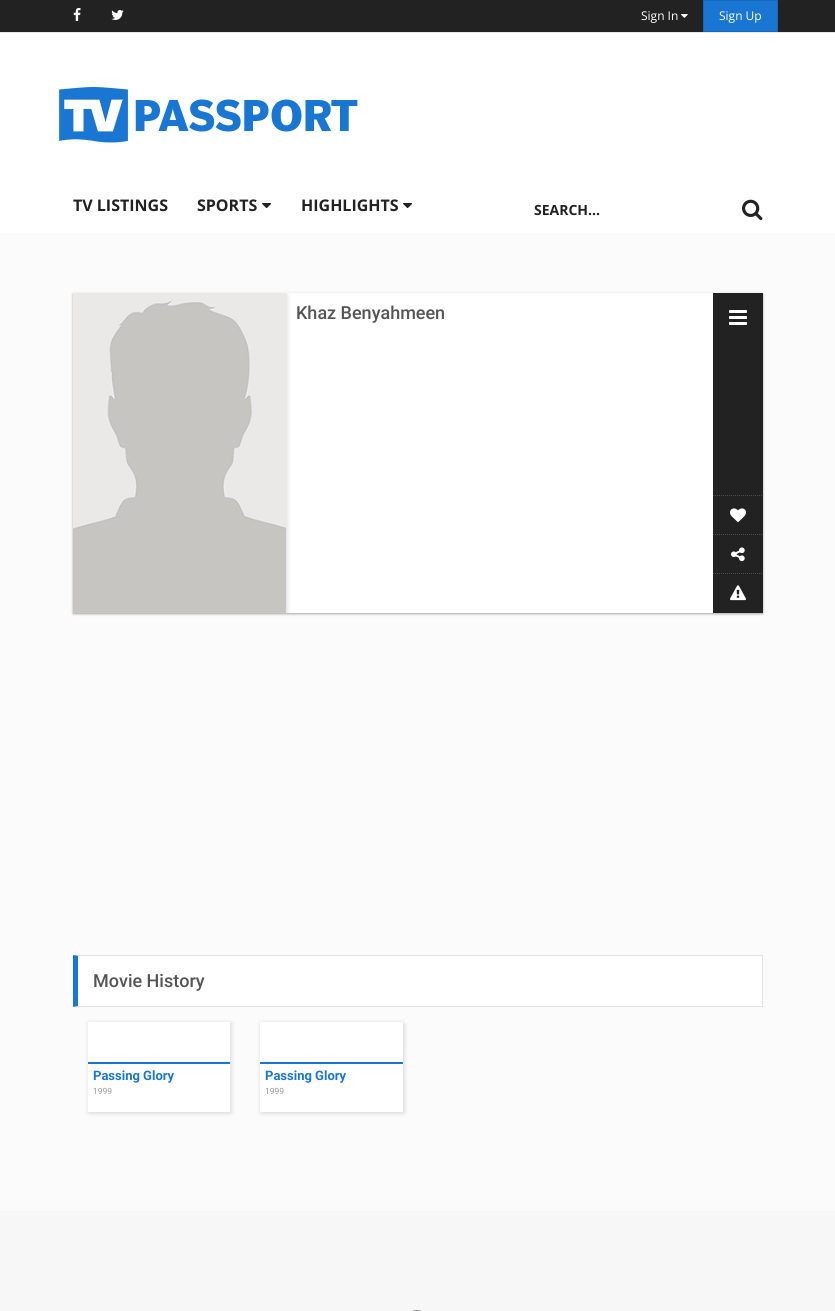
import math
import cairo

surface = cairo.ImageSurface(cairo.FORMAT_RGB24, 835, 1311)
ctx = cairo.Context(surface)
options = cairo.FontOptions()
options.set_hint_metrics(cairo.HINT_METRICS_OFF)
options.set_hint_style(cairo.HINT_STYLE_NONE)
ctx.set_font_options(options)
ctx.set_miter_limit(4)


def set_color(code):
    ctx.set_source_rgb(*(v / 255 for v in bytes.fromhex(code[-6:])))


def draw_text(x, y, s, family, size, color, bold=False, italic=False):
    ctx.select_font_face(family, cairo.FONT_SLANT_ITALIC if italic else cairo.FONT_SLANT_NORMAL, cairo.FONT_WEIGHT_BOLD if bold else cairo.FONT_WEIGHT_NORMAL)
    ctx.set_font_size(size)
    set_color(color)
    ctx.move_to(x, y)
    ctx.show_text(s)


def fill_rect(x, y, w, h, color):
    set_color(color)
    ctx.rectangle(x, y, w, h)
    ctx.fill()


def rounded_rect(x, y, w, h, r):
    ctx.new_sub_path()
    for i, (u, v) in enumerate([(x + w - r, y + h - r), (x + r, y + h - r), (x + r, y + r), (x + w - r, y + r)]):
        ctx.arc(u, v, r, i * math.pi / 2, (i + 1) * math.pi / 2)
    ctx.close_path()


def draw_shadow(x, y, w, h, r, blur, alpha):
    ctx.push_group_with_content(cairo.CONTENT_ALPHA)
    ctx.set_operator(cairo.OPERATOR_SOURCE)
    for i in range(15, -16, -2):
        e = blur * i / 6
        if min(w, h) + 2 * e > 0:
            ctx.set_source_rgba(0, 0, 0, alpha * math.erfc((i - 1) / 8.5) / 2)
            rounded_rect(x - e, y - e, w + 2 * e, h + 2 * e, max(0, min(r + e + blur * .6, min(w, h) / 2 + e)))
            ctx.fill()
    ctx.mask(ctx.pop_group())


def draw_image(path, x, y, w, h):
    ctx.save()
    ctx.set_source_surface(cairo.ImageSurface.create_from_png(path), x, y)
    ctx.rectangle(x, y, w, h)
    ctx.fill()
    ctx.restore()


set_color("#fbfbfb")
ctx.paint()
fill_rect(0, 33, 835, 200, "#ffffff")
fill_rect(0, 0, 835, 32, "#222222")
fill_rect(0, 32, 835, 1, "#e7e7e7")
draw_image("assets/img1.png", 73, 8, 8, 13)
draw_image("assets/img2.png", 111, 10, 13, 10)
draw_text(641, 20, "Sign In", "Open Sans", 12, "#ffffff")
draw_image("assets/img3.png", 681, 14, 7, 4)
set_color("#1976d2")
ctx.rectangle(703.5, 0.5, 74, 31)
ctx.fill_preserve()
set_color("#1669bb")
ctx.set_line_width(1)
ctx.stroke()
draw_text(719, 20, "Sign Up", "Open Sans", 12, "#ffffff")
draw_image("assets/img4.png", 59, 87, 299, 56)
draw_text(73, 211, "TV LISTINGS", "Open Sans", 16, "#222222", bold=True)
draw_text(197, 211, "SPORTS", "Open Sans", 16, "#222222", bold=True)
draw_image("assets/img5.png", 262, 203, 10, 6)
draw_text(301, 211, "HIGHLIGHTS", "Open Sans", 16, "#222222", bold=True)
draw_image("assets/img5.png", 403, 203, 10, 6)
draw_text(534, 215, "SEARCH...", "Open Sans", 14, "#222222", bold=True)
draw_image("assets/img6.png", 742, 199, 21, 22)
set_color("#000000")
draw_shadow(73, 294, 690, 320, 0, 1, 0.24)
draw_shadow(73, 294, 690, 320, 0, 1.5, 0.12)
fill_rect(73, 293, 640, 320, "#ffffff")
ctx.save()
ctx.rectangle(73, 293, 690, 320)
ctx.clip()
set_color("#000000")
draw_shadow(74, 294, 213, 320, 0, 2.5, 0.15)
ctx.restore()
draw_image("assets/img7.png", 73, 293, 213, 320)
draw_text(296, 319, "Khaz Benyahmeen", "Roboto Medium", 18, "#555555")
fill_rect(713, 293, 50, 320, "#222222")
draw_image("assets/img8.png", 729, 310, 18, 15)
ctx.new_path()
ctx.move_to(713, 495.5)
ctx.line_to(763, 495.5)
set_color("#4e4e4e")
ctx.set_dash([1, 1])
ctx.stroke()
draw_image("assets/img9.png", 730, 508, 16, 15)
ctx.new_path()
ctx.move_to(713, 534.5)
ctx.line_to(763, 534.5)
ctx.stroke()
draw_image("assets/img10.png", 731, 547, 14, 15)
ctx.new_path()
ctx.move_to(713, 573.5)
ctx.line_to(763, 573.5)
ctx.stroke()
draw_image("assets/img11.png", 730, 585, 16, 16)
fill_rect(78, 956, 684, 50, "#ffffff")
set_color("#e2e2e2")
ctx.new_path()
ctx.move_to(73, 955)
ctx.line_to(763, 955)
ctx.line_to(762, 956)
ctx.line_to(78, 956)
ctx.close_path()
ctx.fill()
fill_rect(762, 955, 1, 52, "#e2e2e2")
ctx.new_path()
ctx.move_to(763, 1007)
ctx.line_to(73, 1007)
ctx.line_to(78, 1006)
ctx.line_to(762, 1006)
ctx.close_path()
ctx.fill()
set_color("#1976d2")
ctx.new_path()
ctx.move_to(73, 1007)
ctx.line_to(73, 955)
ctx.line_to(78, 956)
ctx.line_to(78, 1006)
ctx.close_path()
ctx.fill()
draw_text(93, 987, "Movie History", "Roboto Medium", 18, "#555555")
set_color("#000000")
draw_shadow(89, 1023, 142, 90, 0, 2.5, 0.15)
fill_rect(88, 1022, 142, 90, "#ffffff")
fill_rect(88, 1062, 142, 2, "#1976d2")
draw_text(93, 1080, "Passing Glory", "Roboto", 13, "#1976d2", bold=True)
draw_text(93, 1094, "1999", "Roboto", 8.5, "#999999")
set_color("#000000")
draw_shadow(261, 1023, 143, 90, 0, 2.5, 0.15)
fill_rect(260, 1022, 143, 90, "#ffffff")
fill_rect(260, 1062, 143, 2, "#1976d2")
draw_text(265, 1080, "Passing Glory", "Roboto", 13, "#1976d2", bold=True)
draw_text(265, 1094, "1999", "Roboto", 8.5, "#999999")
fill_rect(0, 1211, 835, 100, "#f7f7f7")
rounded_rect(406.5, 1310.5, 21, 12, 10.5)
set_color("#888888")
ctx.set_dash([])
ctx.stroke()
surface.write_to_png("output.png")
